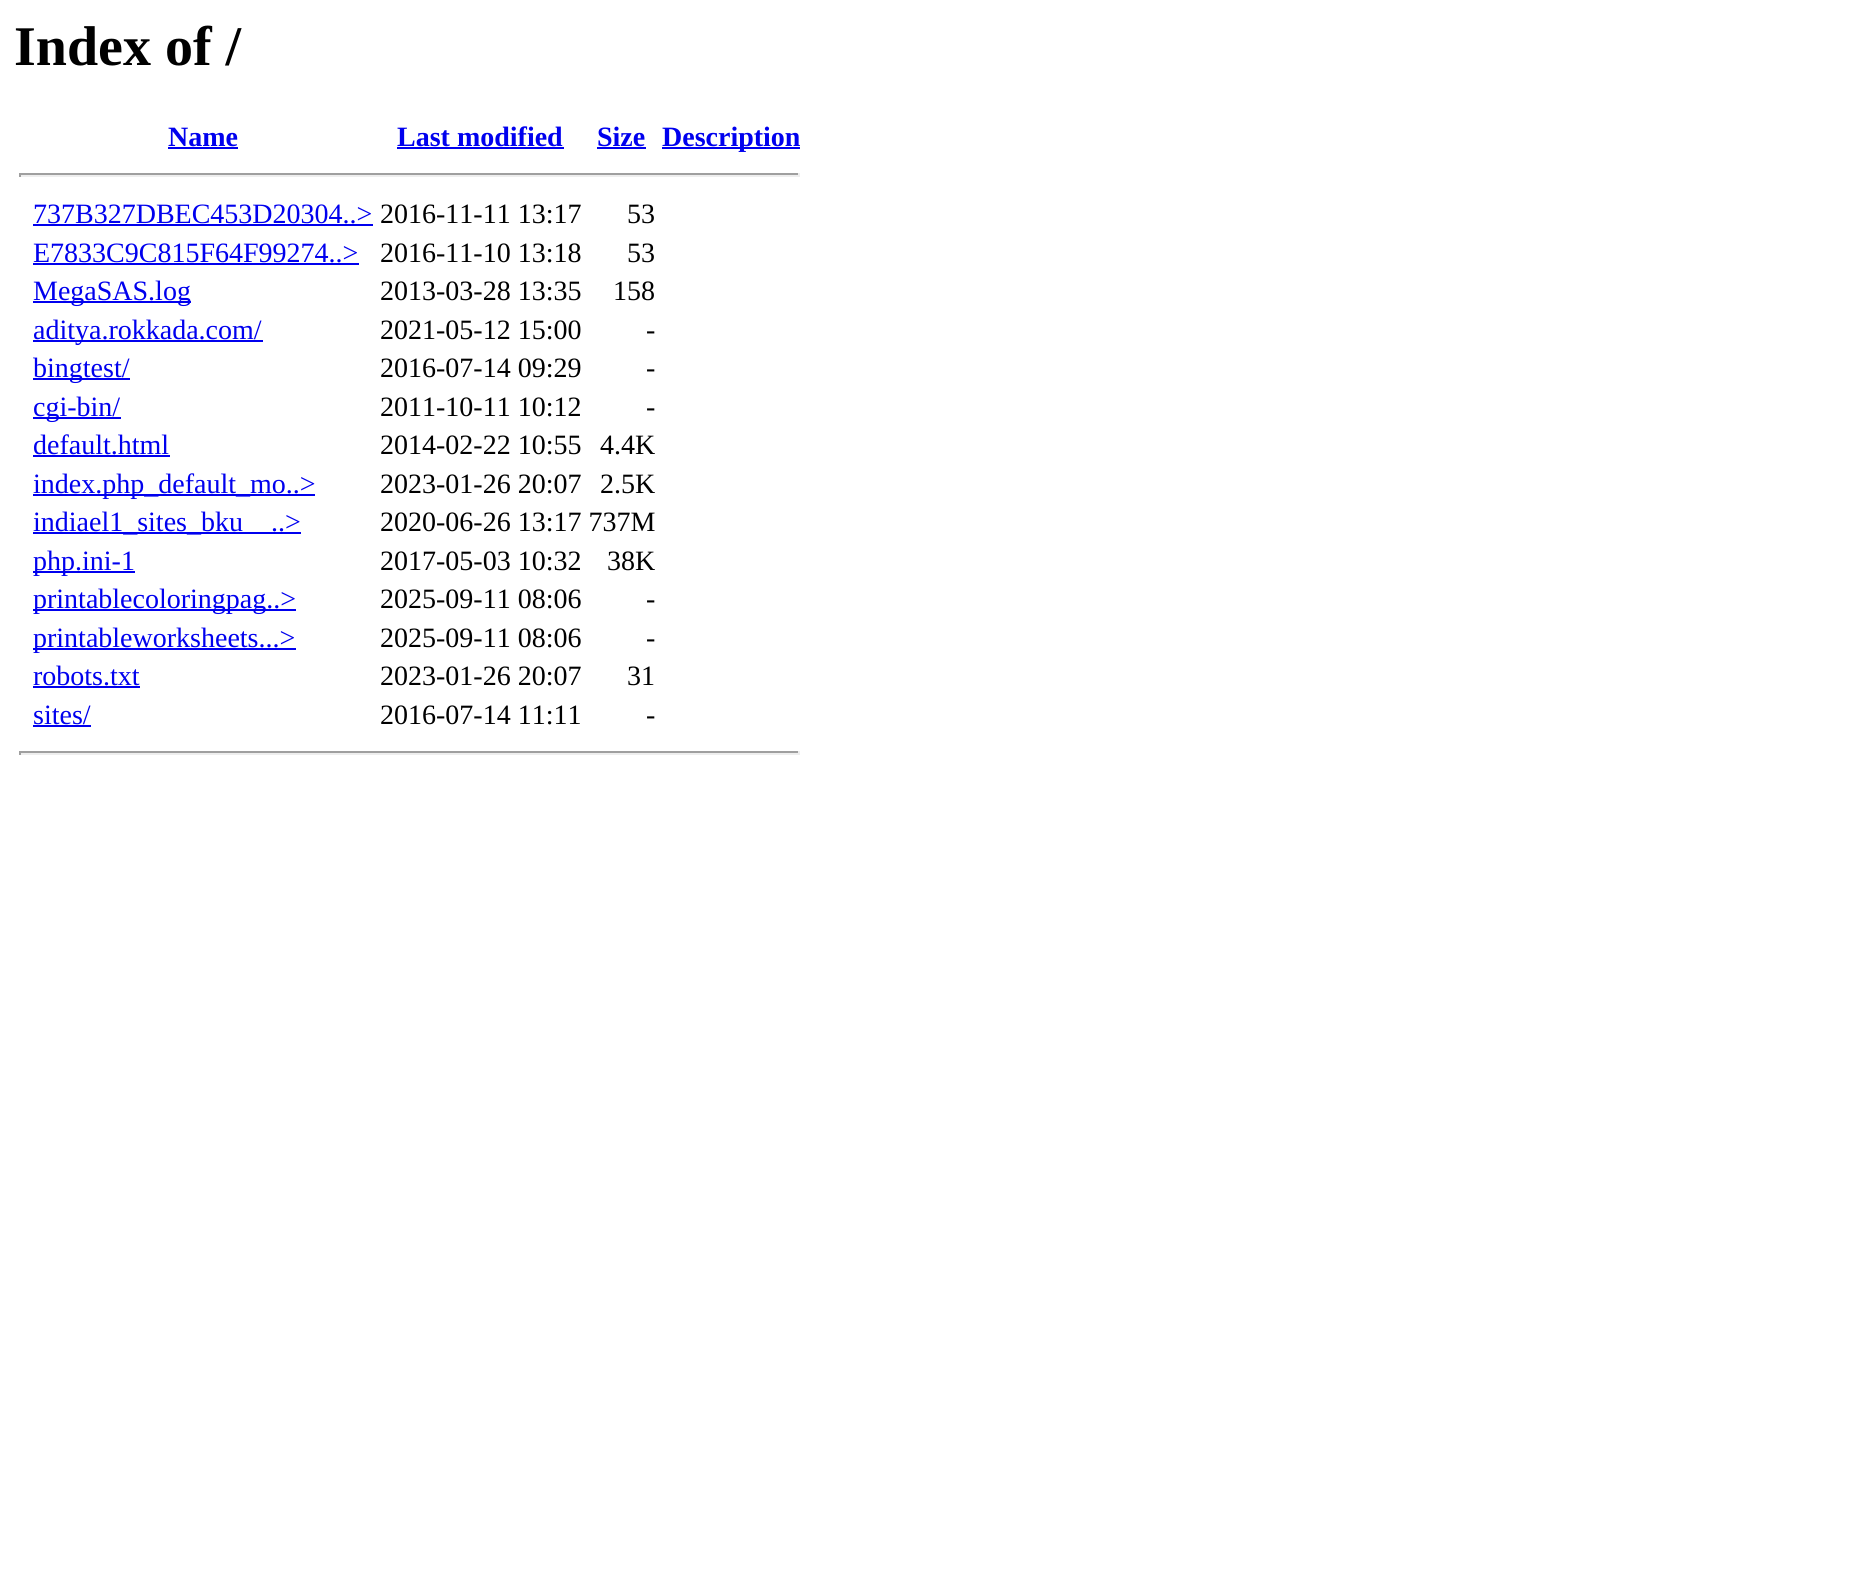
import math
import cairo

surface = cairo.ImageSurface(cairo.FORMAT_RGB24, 1868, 1576)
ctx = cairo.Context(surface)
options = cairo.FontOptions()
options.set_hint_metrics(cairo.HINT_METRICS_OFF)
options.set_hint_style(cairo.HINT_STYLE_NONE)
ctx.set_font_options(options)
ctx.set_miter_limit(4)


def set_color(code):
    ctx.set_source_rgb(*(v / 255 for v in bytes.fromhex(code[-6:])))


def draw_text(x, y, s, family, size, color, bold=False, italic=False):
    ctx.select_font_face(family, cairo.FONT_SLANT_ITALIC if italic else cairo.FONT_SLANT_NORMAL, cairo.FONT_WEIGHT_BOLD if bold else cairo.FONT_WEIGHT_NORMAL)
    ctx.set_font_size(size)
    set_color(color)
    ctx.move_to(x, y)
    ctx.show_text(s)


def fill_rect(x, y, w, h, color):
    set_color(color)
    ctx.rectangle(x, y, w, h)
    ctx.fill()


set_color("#ffffff")
ctx.paint()
draw_text(14, 65, "Index of /", "Liberation Serif", 56, "#000000", bold=True)
draw_text(168, 146, "Name", "Liberation Serif", 28, "#0000ee", bold=True)
fill_rect(168, 147, 70, 2, "#0000ee")
draw_text(397, 146, "Last modified", "Liberation Serif", 28, "#0000ee", bold=True)
fill_rect(397, 147, 167, 2, "#0000ee")
draw_text(597, 146, "Size", "Liberation Serif", 28, "#0000ee", bold=True)
fill_rect(597, 147, 49, 2, "#0000ee")
fill_rect(662, 147, 138, 2, "#0000ee")
draw_text(662, 146, "Description", "Liberation Serif", 28, "#0000ee", bold=True)
fill_rect(19, 173, 781, 2, "#9f9f9f")
fill_rect(798, 173, 2, 4, "#eeeeee")
fill_rect(19, 175, 781, 2, "#eeeeee")
fill_rect(19, 173, 2, 4, "#9f9f9f")
draw_text(33, 223, "737B327DBEC453D20304..>", "Liberation Serif", 28, "#0000ee")
fill_rect(33, 224, 340, 2, "#0000ee")
draw_text(380, 223, "2016-11-11 13:17", "Liberation Serif", 28, "#000000")
draw_text(627, 223, "53", "Liberation Serif", 28, "#000000")
draw_text(33, 262, "E7833C9C815F64F99274..>", "Liberation Serif", 28, "#0000ee")
fill_rect(33, 263, 326, 2, "#0000ee")
draw_text(380, 262, "2016-11-10 13:18", "Liberation Serif", 28, "#000000")
draw_text(627, 262, "53", "Liberation Serif", 28, "#000000")
fill_rect(33, 301, 158, 2, "#0000ee")
draw_text(33, 300, "MegaSAS.log", "Liberation Serif", 28, "#0000ee")
draw_text(380, 300, "2013-03-28 13:35", "Liberation Serif", 28, "#000000")
draw_text(613, 300, "158", "Liberation Serif", 28, "#000000")
fill_rect(33, 340, 230, 2, "#0000ee")
draw_text(33, 339, "aditya.rokkada.com/", "Liberation Serif", 28, "#0000ee")
draw_text(380, 339, "2021-05-12 15:00", "Liberation Serif", 28, "#000000")
draw_text(646, 339, "-", "Liberation Serif", 28, "#000000")
fill_rect(33, 378, 97, 2, "#0000ee")
draw_text(33, 377, "bingtest/", "Liberation Serif", 28, "#0000ee")
draw_text(380, 377, "2016-07-14 09:29", "Liberation Serif", 28, "#000000")
draw_text(646, 377, "-", "Liberation Serif", 28, "#000000")
fill_rect(33, 417, 88, 2, "#0000ee")
draw_text(33, 416, "cgi-bin/", "Liberation Serif", 28, "#0000ee")
draw_text(380, 416, "2011-10-11 10:12", "Liberation Serif", 28, "#000000")
draw_text(646, 416, "-", "Liberation Serif", 28, "#000000")
draw_text(33, 454, "default.html", "Liberation Serif", 28, "#0000ee")
fill_rect(33, 455, 137, 2, "#0000ee")
draw_text(380, 454, "2014-02-22 10:55", "Liberation Serif", 28, "#000000")
draw_text(600, 454, "4.4K", "Liberation Serif", 28, "#000000")
fill_rect(33, 494, 282, 2, "#0000ee")
draw_text(33, 493, "index.php_default_mo..>", "Liberation Serif", 28, "#0000ee")
draw_text(380, 493, "2023-01-26 20:07", "Liberation Serif", 28, "#000000")
draw_text(600, 493, "2.5K", "Liberation Serif", 28, "#000000")
fill_rect(33, 532, 268, 2, "#0000ee")
draw_text(33, 531, "indiael1_sites_bku", "Liberation Serif", 28, "#0000ee")
draw_text(271, 531, "..>", "Liberation Serif", 28, "#0000ee")
draw_text(380, 531, "2020-06-26 13:17 737M", "Liberation Serif", 28, "#000000")
fill_rect(33, 571, 102, 2, "#0000ee")
draw_text(33, 570, "php.ini-1", "Liberation Serif", 28, "#0000ee")
draw_text(380, 570, "2017-05-03 10:32", "Liberation Serif", 28, "#000000")
draw_text(607, 570, "38K", "Liberation Serif", 28, "#000000")
fill_rect(33, 609, 263, 2, "#0000ee")
draw_text(33, 608, "printablecoloringpag..>", "Liberation Serif", 28, "#0000ee")
draw_text(380, 608, "2025-09-11 08:06", "Liberation Serif", 28, "#000000")
draw_text(646, 608, "-", "Liberation Serif", 28, "#000000")
fill_rect(33, 648, 263, 2, "#0000ee")
draw_text(33, 647, "printableworksheets...>", "Liberation Serif", 28, "#0000ee")
draw_text(380, 647, "2025-09-11 08:06", "Liberation Serif", 28, "#000000")
draw_text(646, 647, "-", "Liberation Serif", 28, "#000000")
draw_text(33, 685, "robots.txt", "Liberation Serif", 28, "#0000ee")
fill_rect(33, 686, 107, 2, "#0000ee")
draw_text(380, 685, "2023-01-26 20:07", "Liberation Serif", 28, "#000000")
draw_text(627, 685, "31", "Liberation Serif", 28, "#000000")
draw_text(33, 724, "sites/", "Liberation Serif", 28, "#0000ee")
fill_rect(33, 725, 58, 2, "#0000ee")
draw_text(380, 724, "2016-07-14 11:11", "Liberation Serif", 28, "#000000")
draw_text(646, 724, "-", "Liberation Serif", 28, "#000000")
fill_rect(19, 751, 781, 2, "#9f9f9f")
fill_rect(798, 751, 2, 4, "#eeeeee")
fill_rect(19, 753, 781, 2, "#eeeeee")
fill_rect(19, 751, 2, 4, "#9f9f9f")
surface.write_to_png("output.png")
